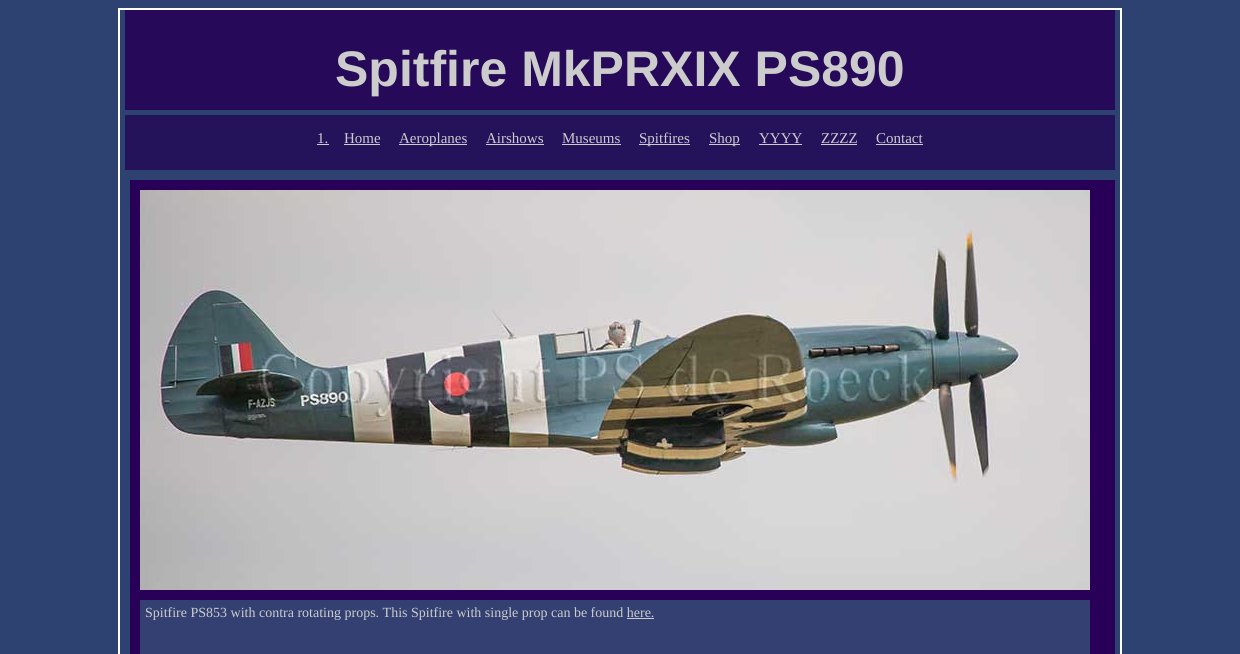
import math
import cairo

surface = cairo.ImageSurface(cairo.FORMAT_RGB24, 1240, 654)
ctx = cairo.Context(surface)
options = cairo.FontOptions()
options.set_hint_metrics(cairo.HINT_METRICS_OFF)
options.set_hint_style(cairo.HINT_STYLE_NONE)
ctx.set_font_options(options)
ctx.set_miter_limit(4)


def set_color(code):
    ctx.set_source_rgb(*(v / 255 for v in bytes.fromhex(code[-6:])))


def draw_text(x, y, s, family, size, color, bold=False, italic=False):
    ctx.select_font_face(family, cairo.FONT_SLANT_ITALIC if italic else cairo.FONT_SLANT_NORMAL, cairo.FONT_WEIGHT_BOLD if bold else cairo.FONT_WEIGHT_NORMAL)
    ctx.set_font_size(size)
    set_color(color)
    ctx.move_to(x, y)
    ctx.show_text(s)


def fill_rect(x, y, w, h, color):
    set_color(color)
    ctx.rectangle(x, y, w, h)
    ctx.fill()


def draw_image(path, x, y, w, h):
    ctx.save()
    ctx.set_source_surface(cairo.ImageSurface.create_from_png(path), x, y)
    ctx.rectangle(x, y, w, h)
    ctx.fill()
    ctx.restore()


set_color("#2e4272")
ctx.paint()
ctx.rectangle(119, 9, 1002, 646)
set_color("#ffffff")
ctx.stroke()
fill_rect(125, 10, 990, 100, "#260959")
draw_text(335, 86, "Spitfire MkPRXIX PS890", "Liberation Sans", 50, "#cccccc", bold=True)
fill_rect(125, 115, 990, 55, "#24135a")
draw_text(317, 143, "1.", "Liberation Serif", 15, "#cccccc")
fill_rect(317, 144, 12, 1, "#cccccc")
draw_text(344, 143, "Home", "Liberation Serif", 15, "#cccccc")
fill_rect(344, 144, 36, 1, "#cccccc")
fill_rect(399, 144, 68, 1, "#cccccc")
draw_text(399, 143, "Aeroplanes", "Liberation Serif", 15, "#cccccc")
draw_text(486, 143, "Airshows", "Liberation Serif", 15, "#cccccc")
fill_rect(486, 144, 58, 1, "#cccccc")
draw_text(562, 143, "Museums", "Liberation Serif", 15, "#cccccc")
fill_rect(562, 144, 59, 1, "#cccccc")
fill_rect(639, 144, 51, 1, "#cccccc")
draw_text(639, 143, "Spitfires", "Liberation Serif", 15, "#cccccc")
fill_rect(709, 144, 31, 1, "#cccccc")
draw_text(709, 143, "Shop", "Liberation Serif", 15, "#cccccc")
draw_text(759, 143, "YYYY", "Liberation Serif", 15, "#cccccc")
fill_rect(759, 144, 43, 1, "#cccccc")
draw_text(821, 143, "ZZZZ", "Liberation Serif", 15, "#cccccc")
fill_rect(821, 144, 36, 1, "#cccccc")
draw_text(876, 143, "Contact", "Liberation Serif", 15, "#cccccc")
fill_rect(876, 144, 47, 1, "#cccccc")
fill_rect(130, 180, 985, 474, "#280058")
draw_image("assets/img1.png", 140, 190, 950, 400)
fill_rect(140, 600, 950, 54, "#334071")
draw_text(145, 617, "Spitfire PS853 with contra rotating props. This Spitfire with single prop can be found here.", "Liberation Serif", 14, "#cccccc")
fill_rect(627, 618, 27, 1, "#cccccc")
surface.write_to_png("output.png")
